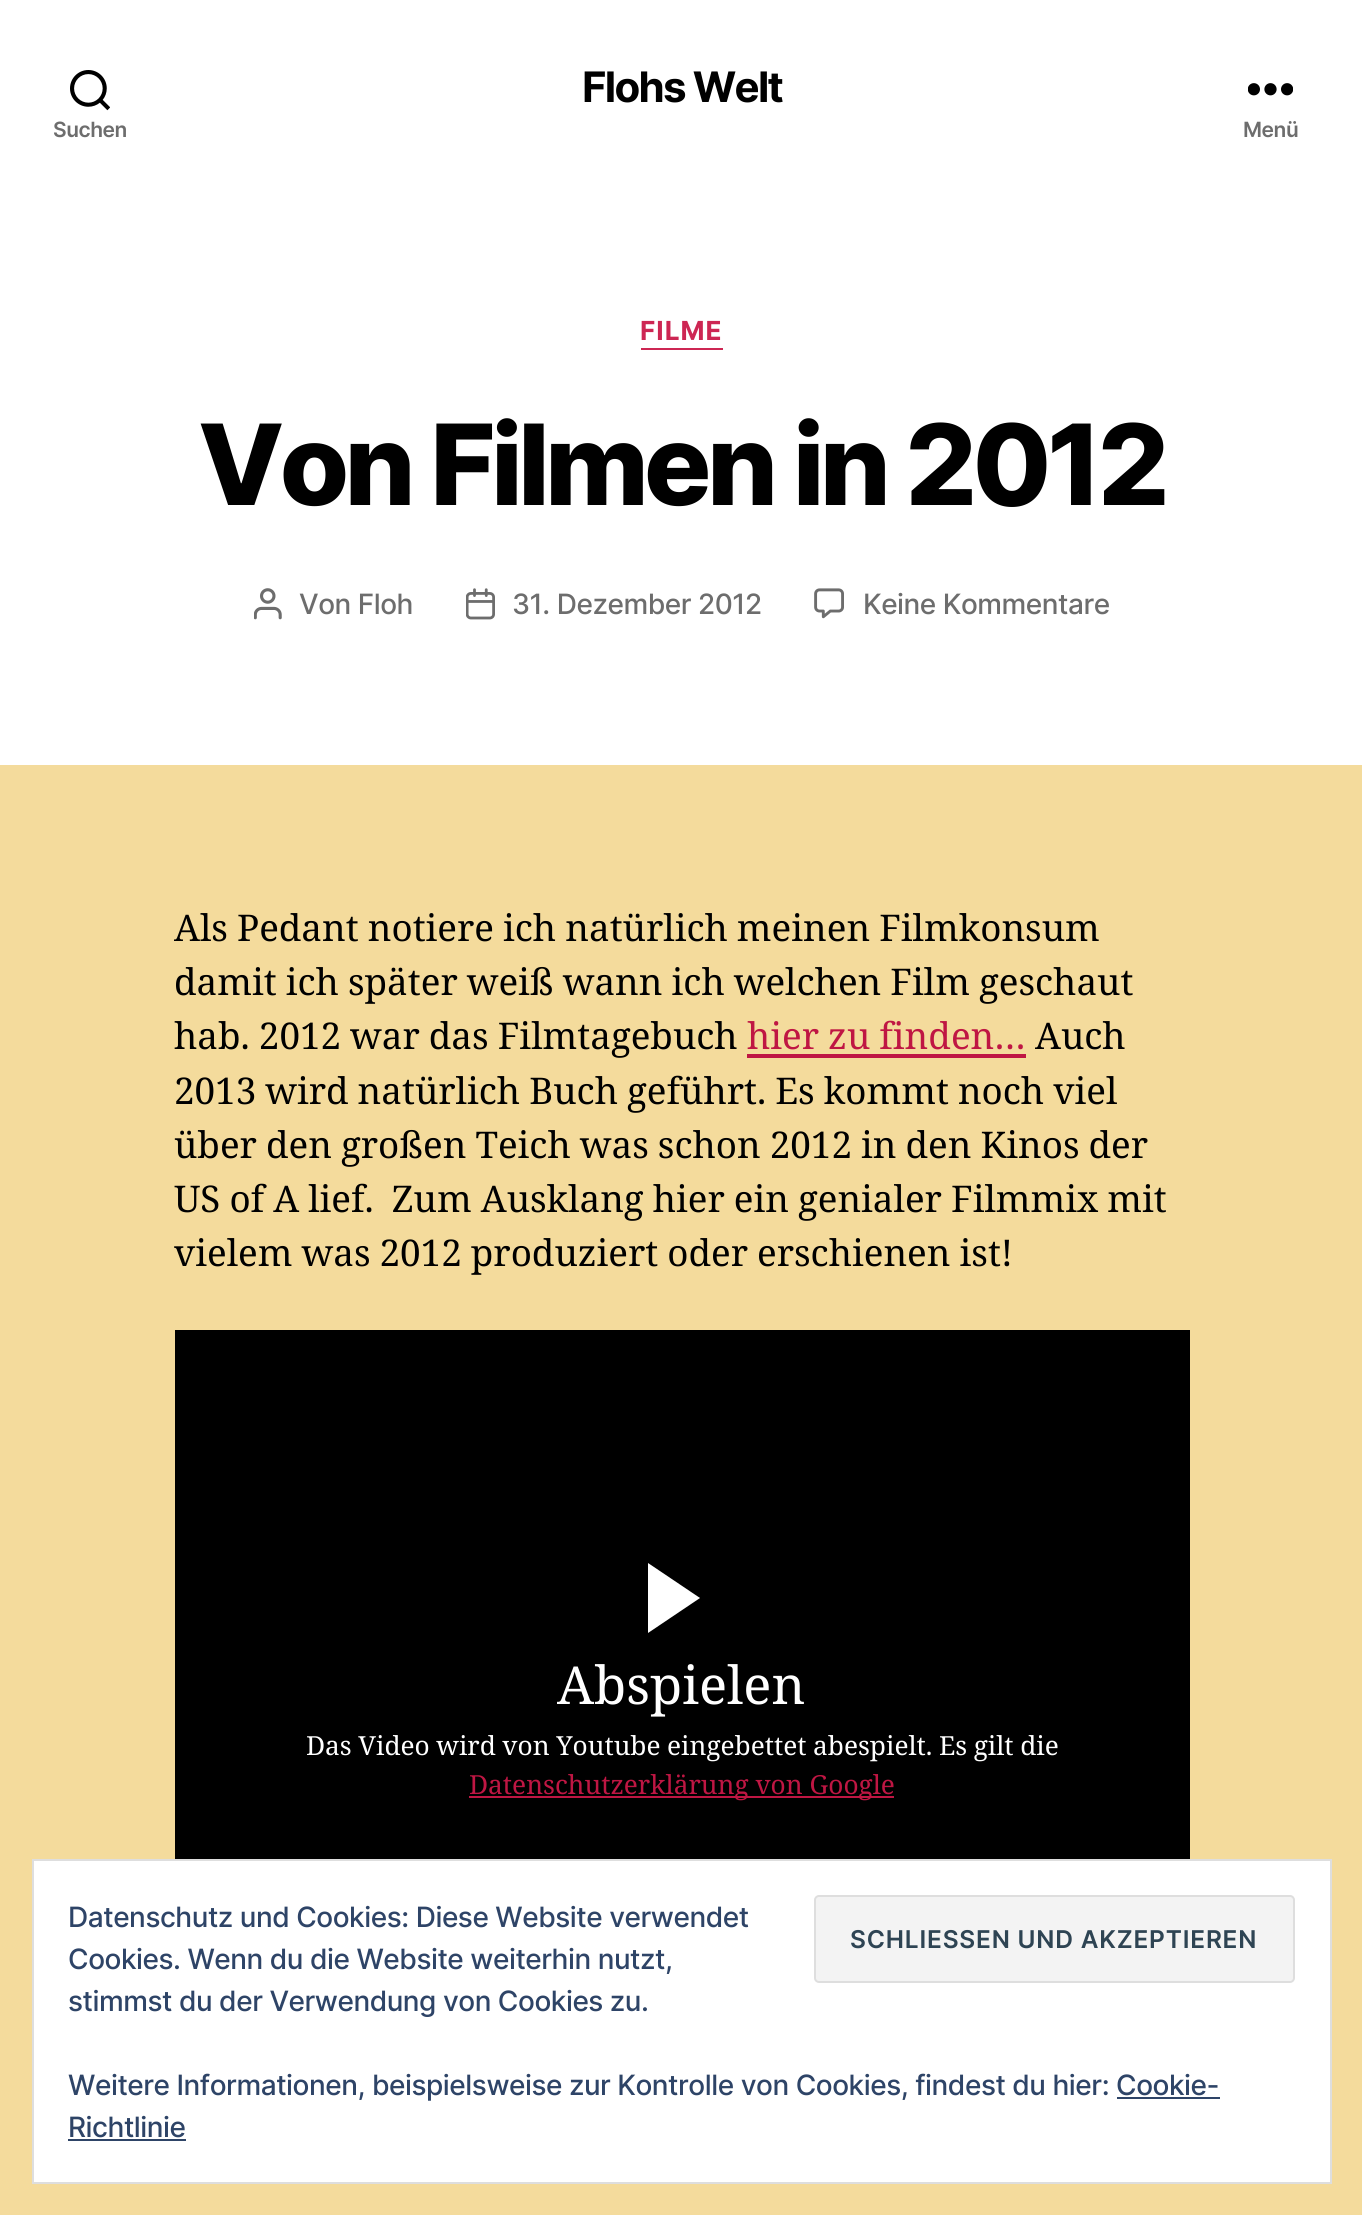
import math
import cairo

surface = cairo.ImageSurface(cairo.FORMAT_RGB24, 1362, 2215)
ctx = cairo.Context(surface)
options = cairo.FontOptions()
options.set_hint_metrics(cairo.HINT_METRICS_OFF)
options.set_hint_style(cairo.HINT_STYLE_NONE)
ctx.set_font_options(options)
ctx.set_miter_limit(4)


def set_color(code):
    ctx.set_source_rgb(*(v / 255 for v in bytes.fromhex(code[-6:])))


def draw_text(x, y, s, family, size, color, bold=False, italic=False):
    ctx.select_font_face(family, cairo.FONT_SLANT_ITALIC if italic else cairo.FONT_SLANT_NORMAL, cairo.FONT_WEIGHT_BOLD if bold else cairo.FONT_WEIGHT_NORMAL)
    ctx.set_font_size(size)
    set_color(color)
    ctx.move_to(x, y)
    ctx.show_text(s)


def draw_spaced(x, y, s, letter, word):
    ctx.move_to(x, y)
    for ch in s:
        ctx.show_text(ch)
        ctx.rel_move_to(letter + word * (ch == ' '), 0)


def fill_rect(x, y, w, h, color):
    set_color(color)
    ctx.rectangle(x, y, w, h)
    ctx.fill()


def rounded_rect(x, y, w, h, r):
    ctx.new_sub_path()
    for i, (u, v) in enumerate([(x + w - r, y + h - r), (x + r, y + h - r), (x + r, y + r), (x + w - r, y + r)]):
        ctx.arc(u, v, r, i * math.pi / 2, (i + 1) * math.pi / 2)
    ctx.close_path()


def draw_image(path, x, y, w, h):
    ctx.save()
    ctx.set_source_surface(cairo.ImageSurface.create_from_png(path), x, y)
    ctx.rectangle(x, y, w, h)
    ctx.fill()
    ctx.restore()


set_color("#f4db9c")
ctx.paint()
fill_rect(0, 0, 1362, 765, "#ffffff")
ctx.select_font_face("Inter", cairo.FONT_SLANT_NORMAL, cairo.FONT_WEIGHT_BOLD)
ctx.set_font_size(42)
set_color("#000000")
draw_spaced(582, 102, "Flohs Welt", -1.75, 0)
draw_image("assets/img1.png", 70, 70, 40, 41)
ctx.select_font_face("Inter SemiBold")
ctx.set_font_size(21)
set_color("#6d6d6d")
draw_spaced(53, 137, "Suchen", -0.47, 0)
draw_image("assets/img2.png", 1248, 83, 45, 13)
draw_spaced(1243, 137, "Menü", -0.47, 0)
fill_rect(641, 348, 82, 2, "#cd2653")
ctx.select_font_face("Inter", cairo.FONT_SLANT_NORMAL, cairo.FONT_WEIGHT_BOLD)
ctx.set_font_size(26.25)
draw_spaced(640, 340, "FILME", 1, 0)
ctx.select_font_face("Inter ExtraBold")
ctx.set_font_size(112)
set_color("#000000")
draw_spaced(198, 505, "Von Filmen in 2012", -4.7, 0)
draw_image("assets/img3.png", 254, 588, 28, 32)
ctx.select_font_face("Inter Medium")
ctx.set_font_size(28)
set_color("#6d6d6d")
draw_spaced(299, 614, "Von Floh", -0.47, 0)
draw_image("assets/img4.png", 466, 588, 29, 32)
draw_spaced(512, 614, "31. Dezember 2012", -0.47, 0)
draw_image("assets/img5.png", 814, 588, 30, 31)
draw_spaced(863, 614, "Keine Kommentare", -0.47, 0)
ctx.select_font_face("Noto Serif")
ctx.set_font_size(36.75)
set_color("#000000")
draw_spaced(174, 941, "Als Pedant notiere ich natürlich meinen Filmkonsum", 0, -0.5)
draw_spaced(174, 995, "damit ich später weiß wann ich welchen Film geschaut", 0, -0.5)
draw_spaced(174, 1049, "hab. 2012 war das Filmtagebuch", 0, -0.5)
set_color("#bf1643")
draw_spaced(747, 1049, "hier zu finden…", 0, -0.5)
fill_rect(747, 1054, 279, 4, "#bf1643")
draw_text(1035, 1049, "Auch", "Noto Serif", 36.75, "#000000")
draw_spaced(174, 1104, "2013 wird natürlich Buch geführt. Es kommt noch viel", 0, -0.5)
draw_spaced(174, 1158, "über den großen Teich was schon 2012 in den Kinos der", 0, -0.5)
draw_spaced(174, 1212, "US of A lief.  Zum Ausklang hier ein genialer Filmmix mit", 0, -0.5)
draw_spaced(174, 1266, "vielem was 2012 produziert oder erschienen ist!", 0, -0.5)
fill_rect(175, 1330, 1015, 529, "#000000")
set_color("#ffffff")
ctx.new_path()
ctx.move_to(648, 1633)
ctx.line_to(648, 1563)
ctx.line_to(700, 1598)
ctx.close_path()
ctx.fill()
draw_text(557, 1704, "Abspielen", "Noto Serif", 52.5, "#ffffff")
ctx.set_font_size(26.25)
draw_spaced(306, 1755, "Das Video wird von Youtube eingebettet abespielt. Es gilt die", 0, -0.25)
fill_rect(469, 1796, 425, 2, "#bf1643")
draw_text(469, 1794, "Datenschutzerklärung von Google", "Noto Serif", 26.25, "#bf1643")
set_color("#ffffff")
ctx.rectangle(33, 1860, 1298, 323)
ctx.fill_preserve()
set_color("#dedede")
ctx.stroke()
ctx.select_font_face("Inter Medium")
ctx.set_font_size(28)
set_color("#2e4467")
draw_spaced(68, 1927, "Datenschutz und Cookies: Diese Website verwendet", -0.47, 0)
set_color("#f3f3f3")
rounded_rect(815, 1896, 479, 86, 4)
ctx.fill_preserve()
set_color("#dedede")
ctx.stroke()
ctx.select_font_face("Inter SemiBold")
ctx.set_font_size(24.5)
set_color("#2e4453")
draw_spaced(850, 1948, "SCHLIESSEN UND AKZEPTIEREN", 0.8, 0)
ctx.select_font_face("Inter Medium")
ctx.set_font_size(28)
set_color("#2e4467")
draw_spaced(68, 1969, "Cookies. Wenn du die Website weiterhin nutzt,", -0.47, 0)
draw_spaced(68, 2011, "stimmst du der Verwendung von Cookies zu.", -0.47, 0)
draw_spaced(68, 2095, "Weitere Informationen, beispielsweise zur Kontrolle von Cookies, findest du hier: Cookie-", -0.47, 0)
draw_spaced(68, 2137, "Richtlinie", -0.47, 0)
fill_rect(1117, 2097, 103, 2, "#2e4467")
fill_rect(68, 2139, 118, 2, "#2e4467")
surface.write_to_png("output.png")
